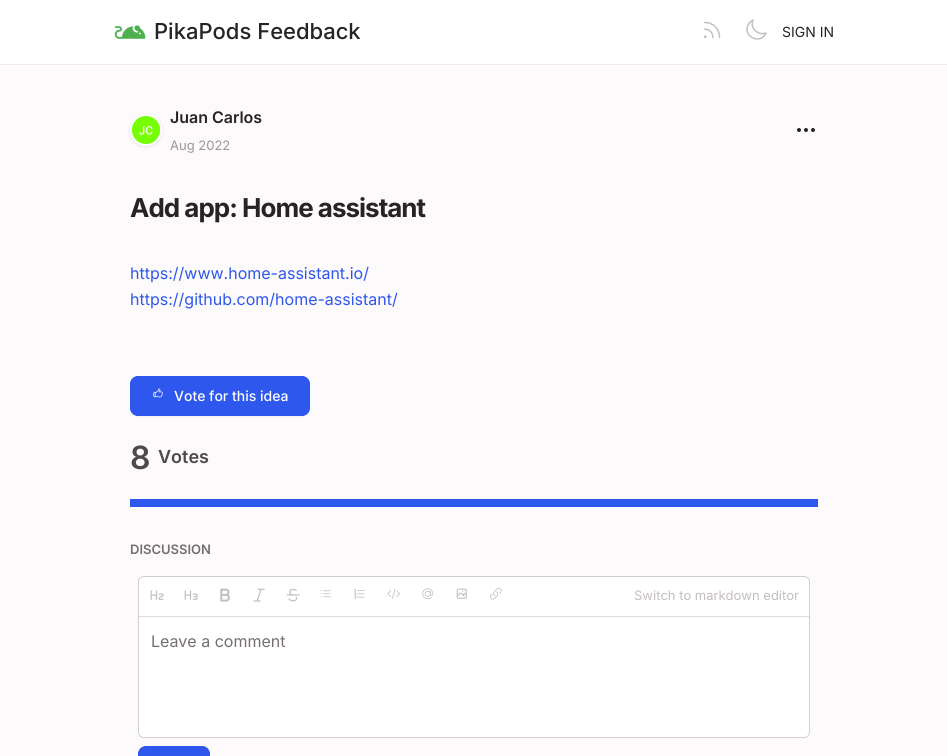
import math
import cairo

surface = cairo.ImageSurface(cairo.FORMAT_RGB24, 947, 756)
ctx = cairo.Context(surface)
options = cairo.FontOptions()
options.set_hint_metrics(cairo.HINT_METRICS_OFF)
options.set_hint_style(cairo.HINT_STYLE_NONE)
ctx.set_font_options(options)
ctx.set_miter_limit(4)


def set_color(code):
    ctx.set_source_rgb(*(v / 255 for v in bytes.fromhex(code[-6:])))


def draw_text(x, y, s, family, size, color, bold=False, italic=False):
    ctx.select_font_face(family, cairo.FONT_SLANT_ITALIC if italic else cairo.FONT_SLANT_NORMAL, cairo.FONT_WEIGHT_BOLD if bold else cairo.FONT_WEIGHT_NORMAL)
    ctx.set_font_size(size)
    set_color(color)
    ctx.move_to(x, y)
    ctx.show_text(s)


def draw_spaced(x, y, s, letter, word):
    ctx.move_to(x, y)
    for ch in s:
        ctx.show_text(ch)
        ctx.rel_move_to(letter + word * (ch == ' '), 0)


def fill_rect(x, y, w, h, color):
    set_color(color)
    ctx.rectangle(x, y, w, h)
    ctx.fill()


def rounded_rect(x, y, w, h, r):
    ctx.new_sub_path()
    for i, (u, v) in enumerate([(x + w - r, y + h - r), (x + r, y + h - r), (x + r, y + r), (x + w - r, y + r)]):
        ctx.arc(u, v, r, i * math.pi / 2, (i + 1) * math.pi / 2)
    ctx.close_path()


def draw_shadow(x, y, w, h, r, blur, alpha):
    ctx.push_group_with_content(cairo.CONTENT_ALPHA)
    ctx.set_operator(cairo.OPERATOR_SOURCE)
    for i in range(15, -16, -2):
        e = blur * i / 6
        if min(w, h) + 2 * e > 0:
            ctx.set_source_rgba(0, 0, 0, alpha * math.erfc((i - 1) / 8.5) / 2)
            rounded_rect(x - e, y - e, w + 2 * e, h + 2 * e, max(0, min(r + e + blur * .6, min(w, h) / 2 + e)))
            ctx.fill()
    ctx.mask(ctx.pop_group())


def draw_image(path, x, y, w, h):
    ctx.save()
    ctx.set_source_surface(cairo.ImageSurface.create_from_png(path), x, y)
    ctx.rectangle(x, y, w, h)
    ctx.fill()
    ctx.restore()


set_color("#fcfafa")
ctx.paint()
fill_rect(0, 0, 947, 64, "#ffffff")
fill_rect(0, 64, 947, 1, "#eeebeb")
draw_image("assets/img1.png", 114, 25, 32, 14)
draw_text(154, 39, "PikaPods Feedback", "Inter Medium", 22, "#262225")
draw_image("assets/img2.png", 703, 21, 18, 18)
ctx.new_path()
ctx.move_to(766, 33)
ctx.curve_to(758, 36, 749.5, 28, 753, 20)
ctx.curve_to(751, 21, 749, 23, 748, 25)
ctx.curve_to(742.5, 37, 761, 45, 766, 33)
ctx.close_path()
set_color("#c4bec0")
ctx.set_line_width(1.5)
ctx.set_line_cap(cairo.LINE_CAP_ROUND)
ctx.set_line_join(cairo.LINE_JOIN_ROUND)
ctx.stroke()
draw_text(782, 37, "SIGN IN", "Inter", 14, "#262225")
set_color("#000000")
draw_shadow(130, 115, 32, 32, 16, 1.5, 0.1)
ctx.arc(146, 130, 15, 0, 2 * math.pi)
set_color("#ffffff")
ctx.set_line_width(2)
ctx.set_line_cap(cairo.LINE_CAP_BUTT)
ctx.set_line_join(cairo.LINE_JOIN_MITER)
ctx.stroke()
draw_image("assets/img3.png", 132, 116, 28, 28)
draw_text(170, 123, "Juan Carlos", "Inter SemiBold", 16, "#262225")
draw_text(170, 150, "Aug 2022", "Inter", 13, "#9d9598")
draw_image("assets/img4.png", 797, 128, 18, 4)
ctx.select_font_face("Inter", cairo.FONT_SLANT_NORMAL, cairo.FONT_WEIGHT_BOLD)
ctx.set_font_size(26)
set_color("#262225")
draw_spaced(130, 217, "Add app: Home assistant", -1, 0)
draw_text(130, 279, "https://www.home-assistant.io/", "Inter", 16, "#2d57ed")
draw_text(130, 305, "https://github.com/home-assistant/", "Inter", 16, "#2d57ed")
set_color("#000000")
draw_shadow(130, 377, 180, 40, 8, 1, 0.05)
set_color("#2d57ed")
rounded_rect(130.5, 376.5, 179, 39, 7.5)
ctx.fill_preserve()
ctx.set_line_width(1)
ctx.stroke()
draw_image("assets/img5.png", 153, 388, 10, 10)
draw_text(174, 401, "Vote for this idea", "Inter Medium", 14, "#ffffff")
draw_text(130, 469, "8", "Inter SemiBold", 32, "#4e474b")
draw_text(158, 463, "Votes", "Inter SemiBold", 18, "#4e474b")
fill_rect(130, 499, 688, 8, "#2d57ed")
draw_text(130, 554, "DISCUSSION", "Inter SemiBold", 13, "#756e71")
set_color("#ffffff")
rounded_rect(138.5, 576.5, 671, 161, 5.5)
ctx.fill_preserve()
set_color("#d2cdcf")
ctx.stroke()
fill_rect(139, 616, 670, 1, "#e0dcdd")
draw_image("assets/img6.png", 150, 590, 14, 10)
draw_image("assets/img7.png", 184, 590, 14, 10)
draw_image("assets/img8.png", 220, 588, 10, 14)
draw_image("assets/img9.png", 253, 588, 12, 14)
draw_image("assets/img10.png", 286, 588, 14, 14)
draw_image("assets/img11.png", 320, 590, 11, 8)
draw_image("assets/img12.png", 354, 588, 11, 11)
draw_image("assets/img13.png", 387, 588, 13, 11)
draw_image("assets/img14.png", 422, 588, 12, 12)
draw_image("assets/img15.png", 456, 588, 11, 11)
draw_image("assets/img16.png", 489, 587, 13, 13)
draw_text(634, 600, "Switch to markdown editor", "Inter", 13, "#c4bec0")
draw_text(151, 647, "Leave a comment", "Inter", 16, "#756e71")
set_color("#2d57ed")
rounded_rect(138.5, 746.5, 71, 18, 7.5)
ctx.fill_preserve()
ctx.stroke()
surface.write_to_png("output.png")
